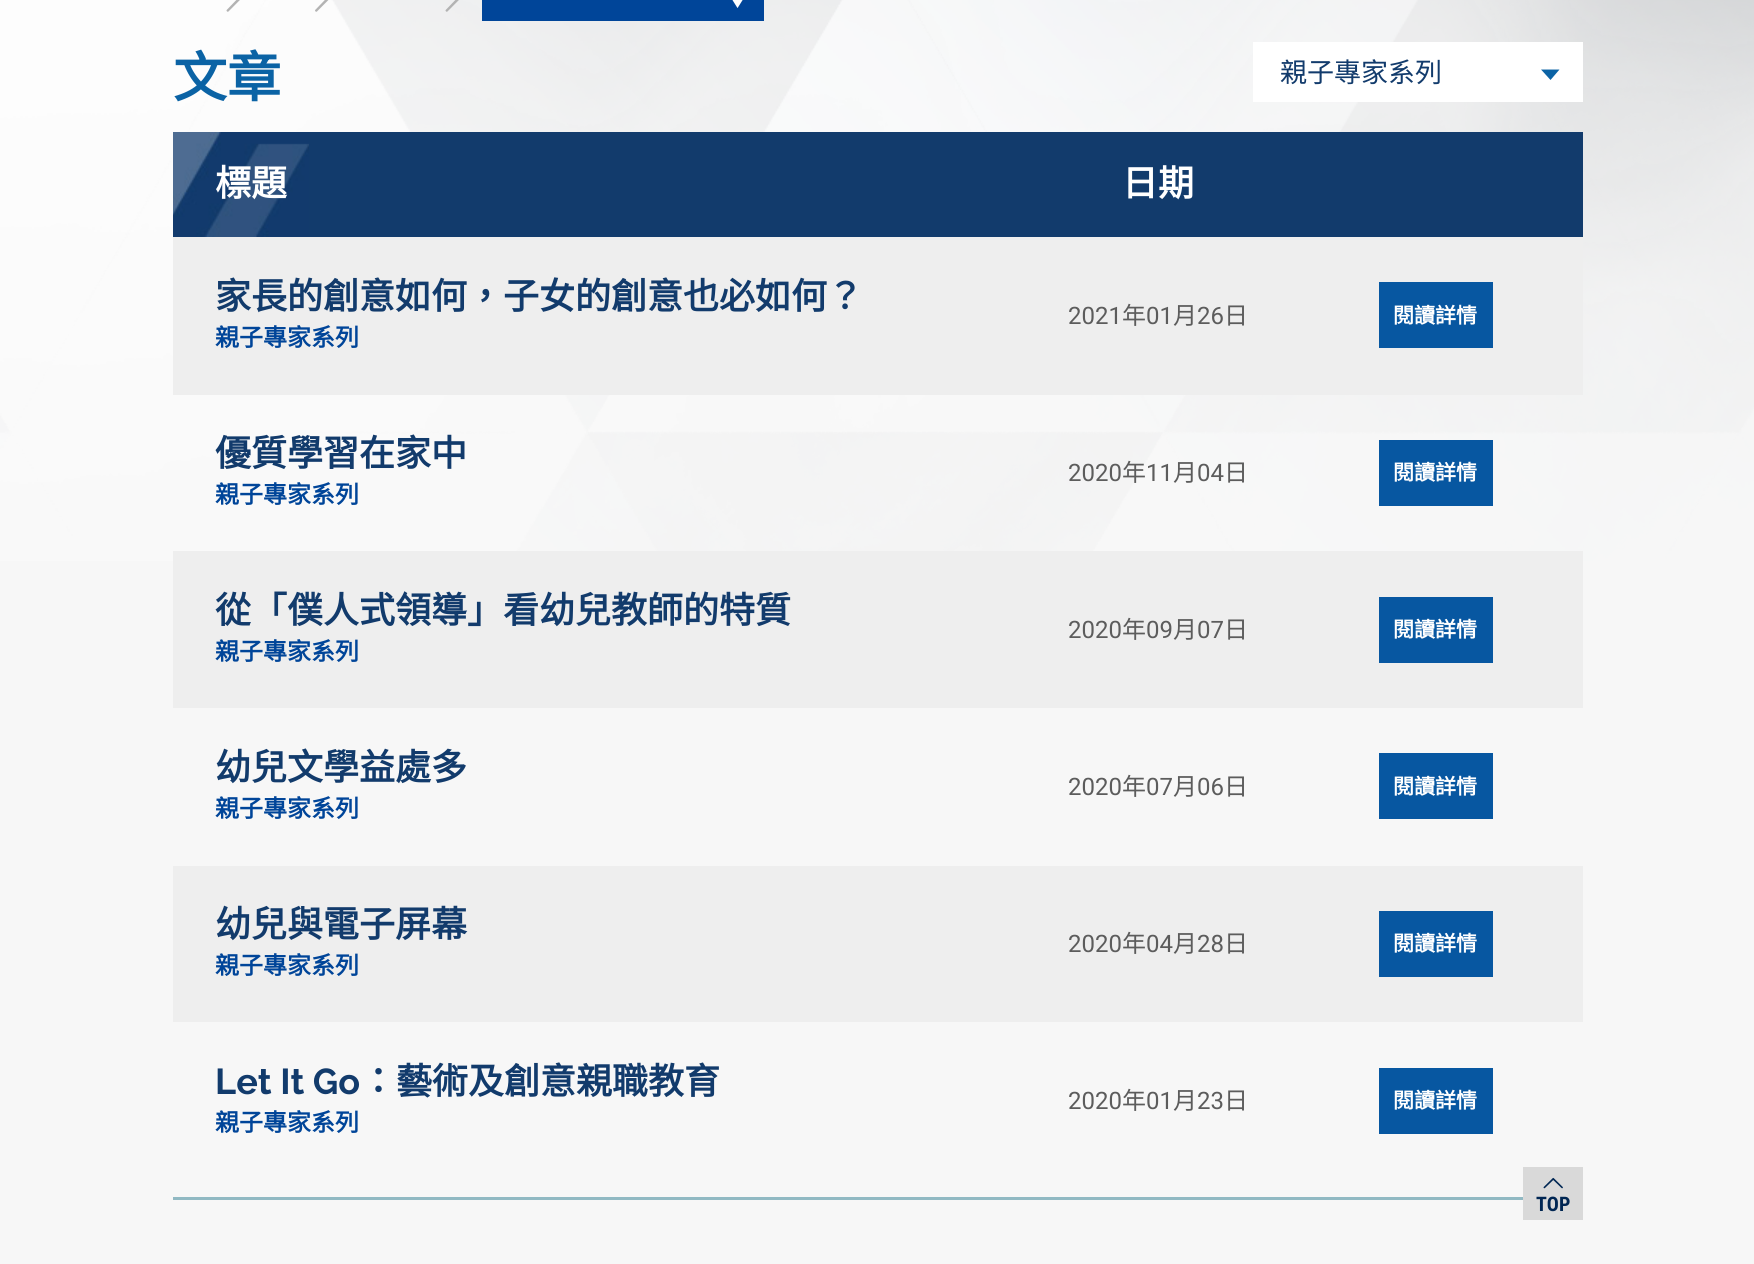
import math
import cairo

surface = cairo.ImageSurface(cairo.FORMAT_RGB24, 1754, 1264)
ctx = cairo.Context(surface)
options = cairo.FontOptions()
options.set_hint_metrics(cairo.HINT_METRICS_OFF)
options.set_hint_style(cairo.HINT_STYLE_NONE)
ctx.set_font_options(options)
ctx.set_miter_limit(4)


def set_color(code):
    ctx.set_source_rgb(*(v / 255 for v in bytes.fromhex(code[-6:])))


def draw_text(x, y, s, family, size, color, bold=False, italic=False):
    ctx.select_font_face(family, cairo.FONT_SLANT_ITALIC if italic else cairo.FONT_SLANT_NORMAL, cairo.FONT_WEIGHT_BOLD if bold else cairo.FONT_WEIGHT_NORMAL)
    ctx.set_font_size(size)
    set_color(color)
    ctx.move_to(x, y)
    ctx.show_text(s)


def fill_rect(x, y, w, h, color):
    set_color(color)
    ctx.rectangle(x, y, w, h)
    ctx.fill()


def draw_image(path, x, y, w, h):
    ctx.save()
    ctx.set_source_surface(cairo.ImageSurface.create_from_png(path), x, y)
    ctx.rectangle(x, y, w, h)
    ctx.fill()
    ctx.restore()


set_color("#f7f7f7")
ctx.paint()
draw_image("assets/img1.png", 0, 0, 1754, 561)
draw_image("assets/img2.png", 226, 0, 14, 12)
draw_image("assets/img3.png", 315, 0, 14, 12)
draw_image("assets/img4.png", 445, 0, 14, 12)
fill_rect(482, 0, 282, 21, "#004599")
draw_image("assets/img5.png", 732, 0, 11, 8)
draw_text(173, 97, "文章", "Noto Sans CJK HK", 54, "#0b63a5", bold=True)
fill_rect(1253, 42, 330, 60, "#ffffff")
draw_text(1280, 82, "親子專家系列", "Noto Sans CJK HK", 27, "#123b6c")
set_color("#0b63a5")
ctx.new_path()
ctx.move_to(1559.5, 69.5)
ctx.line_to(1541, 69.5)
ctx.line_to(1550.5, 80)
ctx.close_path()
ctx.fill()
fill_rect(309, 132, 1274, 105, "#123b6c")
draw_image("assets/img6.png", 173, 132, 136, 105)
draw_text(215, 196, "標題", "Noto Sans CJK HK", 36, "#ffffff", bold=True)
draw_text(1122, 196, "日期", "Noto Sans CJK HK", 36, "#ffffff", bold=True)
fill_rect(173, 237, 1410, 158, "#eeeeee")
draw_text(215, 309, "家長的創意如何，子女的創意也必如何？", "Noto Sans CJK HK", 36, "#123b6c", bold=True)
draw_text(215, 346, "親子專家系列", "Noto Sans CJK HK", 24, "#004599", bold=True)
draw_text(1068, 324, "2021", "Roboto", 24, "#5c5c5c")
draw_text(1122, 324, "年", "Noto Sans CJK HK", 24, "#5c5c5c")
draw_text(1146, 324, "01", "Roboto", 24, "#5c5c5c")
draw_text(1173, 324, "月", "Noto Sans CJK HK", 24, "#5c5c5c")
draw_text(1197, 324, "26", "Roboto", 24, "#5c5c5c")
draw_text(1224, 324, "日", "Noto Sans CJK HK", 24, "#5c5c5c")
fill_rect(1379, 282, 114, 66, "#0757a1")
draw_text(1393, 323, "閱讀詳情", "Noto Sans CJK HK", 21, "#ffffff", bold=True)
draw_text(215, 466, "優質學習在家中", "Noto Sans CJK HK", 36, "#123b6c", bold=True)
draw_text(215, 503, "親子專家系列", "Noto Sans CJK HK", 24, "#004599", bold=True)
draw_text(1068, 481, "2020", "Roboto", 24, "#5c5c5c")
draw_text(1122, 481, "年", "Noto Sans CJK HK", 24, "#5c5c5c")
draw_text(1146, 481, "11", "Roboto", 24, "#5c5c5c")
draw_text(1173, 481, "月", "Noto Sans CJK HK", 24, "#5c5c5c")
draw_text(1197, 481, "04", "Roboto", 24, "#5c5c5c")
draw_text(1224, 481, "日", "Noto Sans CJK HK", 24, "#5c5c5c")
fill_rect(1379, 440, 114, 66, "#0757a1")
draw_text(1393, 480, "閱讀詳情", "Noto Sans CJK HK", 21, "#ffffff", bold=True)
fill_rect(173, 551, 1410, 157, "#eeeeee")
draw_text(215, 623, "從「僕人式領導」看幼兒教師的特質", "Noto Sans CJK HK", 36, "#123b6c", bold=True)
draw_text(215, 660, "親子專家系列", "Noto Sans CJK HK", 24, "#004599", bold=True)
draw_text(1068, 638, "2020", "Roboto", 24, "#5c5c5c")
draw_text(1122, 638, "年", "Noto Sans CJK HK", 24, "#5c5c5c")
draw_text(1146, 638, "09", "Roboto", 24, "#5c5c5c")
draw_text(1173, 638, "月", "Noto Sans CJK HK", 24, "#5c5c5c")
draw_text(1197, 638, "07", "Roboto", 24, "#5c5c5c")
draw_text(1224, 638, "日", "Noto Sans CJK HK", 24, "#5c5c5c")
fill_rect(1379, 597, 114, 66, "#0757a1")
draw_text(1393, 637, "閱讀詳情", "Noto Sans CJK HK", 21, "#ffffff", bold=True)
draw_text(215, 780, "幼兒文學益處多", "Noto Sans CJK HK", 36, "#123b6c", bold=True)
draw_text(215, 817, "親子專家系列", "Noto Sans CJK HK", 24, "#004599", bold=True)
draw_text(1068, 795, "2020", "Roboto", 24, "#5c5c5c")
draw_text(1122, 795, "年", "Noto Sans CJK HK", 24, "#5c5c5c")
draw_text(1146, 795, "07", "Roboto", 24, "#5c5c5c")
draw_text(1173, 795, "月", "Noto Sans CJK HK", 24, "#5c5c5c")
draw_text(1197, 795, "06", "Roboto", 24, "#5c5c5c")
draw_text(1224, 795, "日", "Noto Sans CJK HK", 24, "#5c5c5c")
fill_rect(1379, 753, 114, 66, "#0757a1")
draw_text(1393, 794, "閱讀詳情", "Noto Sans CJK HK", 21, "#ffffff", bold=True)
fill_rect(173, 866, 1410, 156, "#eeeeee")
draw_text(215, 937, "幼兒與電子屏幕", "Noto Sans CJK HK", 36, "#123b6c", bold=True)
draw_text(215, 974, "親子專家系列", "Noto Sans CJK HK", 24, "#004599", bold=True)
draw_text(1068, 952, "2020", "Roboto", 24, "#5c5c5c")
draw_text(1122, 952, "年", "Noto Sans CJK HK", 24, "#5c5c5c")
draw_text(1146, 952, "04", "Roboto", 24, "#5c5c5c")
draw_text(1173, 952, "月", "Noto Sans CJK HK", 24, "#5c5c5c")
draw_text(1197, 952, "28", "Roboto", 24, "#5c5c5c")
draw_text(1224, 952, "日", "Noto Sans CJK HK", 24, "#5c5c5c")
fill_rect(1379, 911, 114, 66, "#0757a1")
draw_text(1393, 951, "閱讀詳情", "Noto Sans CJK HK", 21, "#ffffff", bold=True)
draw_text(215, 1094, "Let It Go", "Raleway", 36, "#123b6c", bold=True)
draw_text(360, 1094, "：藝術及創意親職教育", "Noto Sans CJK HK", 36, "#123b6c", bold=True)
draw_text(215, 1131, "親子專家系列", "Noto Sans CJK HK", 24, "#004599", bold=True)
draw_text(1068, 1109, "2020", "Roboto", 24, "#5c5c5c")
draw_text(1122, 1109, "年", "Noto Sans CJK HK", 24, "#5c5c5c")
draw_text(1146, 1109, "01", "Roboto", 24, "#5c5c5c")
draw_text(1173, 1109, "月", "Noto Sans CJK HK", 24, "#5c5c5c")
draw_text(1197, 1109, "23", "Roboto", 24, "#5c5c5c")
draw_text(1224, 1109, "日", "Noto Sans CJK HK", 24, "#5c5c5c")
fill_rect(1379, 1068, 114, 66, "#0757a1")
draw_text(1393, 1108, "閱讀詳情", "Noto Sans CJK HK", 21, "#ffffff", bold=True)
fill_rect(173, 1197, 1350, 3, "#91b9c3")
fill_rect(1523, 1167, 60, 53, "#d9d9d9")
draw_image("assets/img7.png", 1543, 1177, 20, 12)
draw_text(1536, 1211, "TOP", "Roboto Condensed", 20, "#002653", bold=True)
surface.write_to_png("output.png")
